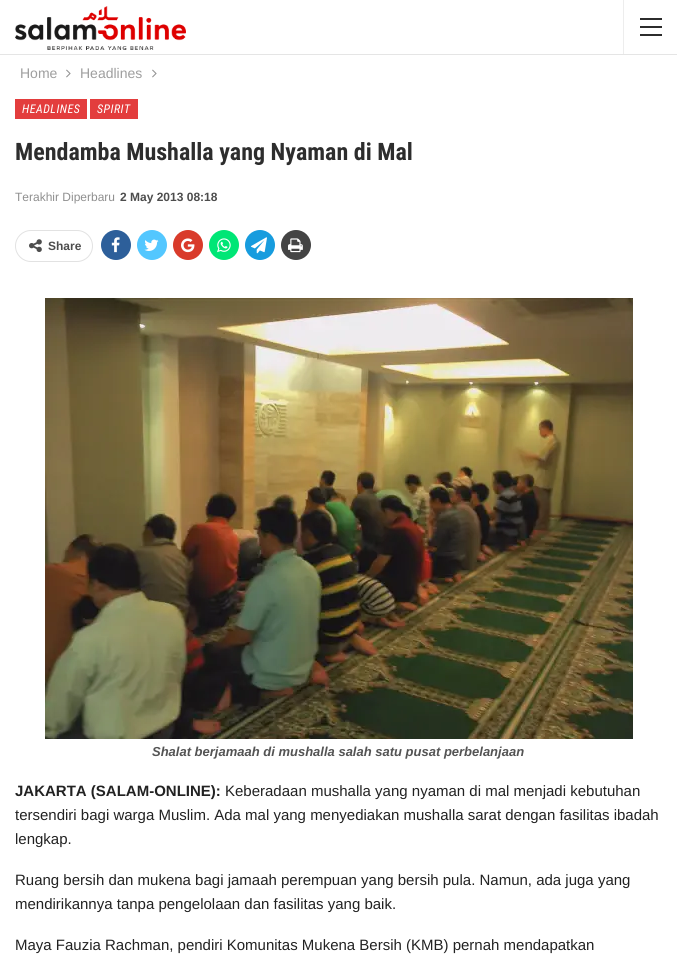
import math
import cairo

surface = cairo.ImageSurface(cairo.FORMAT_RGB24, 677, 963)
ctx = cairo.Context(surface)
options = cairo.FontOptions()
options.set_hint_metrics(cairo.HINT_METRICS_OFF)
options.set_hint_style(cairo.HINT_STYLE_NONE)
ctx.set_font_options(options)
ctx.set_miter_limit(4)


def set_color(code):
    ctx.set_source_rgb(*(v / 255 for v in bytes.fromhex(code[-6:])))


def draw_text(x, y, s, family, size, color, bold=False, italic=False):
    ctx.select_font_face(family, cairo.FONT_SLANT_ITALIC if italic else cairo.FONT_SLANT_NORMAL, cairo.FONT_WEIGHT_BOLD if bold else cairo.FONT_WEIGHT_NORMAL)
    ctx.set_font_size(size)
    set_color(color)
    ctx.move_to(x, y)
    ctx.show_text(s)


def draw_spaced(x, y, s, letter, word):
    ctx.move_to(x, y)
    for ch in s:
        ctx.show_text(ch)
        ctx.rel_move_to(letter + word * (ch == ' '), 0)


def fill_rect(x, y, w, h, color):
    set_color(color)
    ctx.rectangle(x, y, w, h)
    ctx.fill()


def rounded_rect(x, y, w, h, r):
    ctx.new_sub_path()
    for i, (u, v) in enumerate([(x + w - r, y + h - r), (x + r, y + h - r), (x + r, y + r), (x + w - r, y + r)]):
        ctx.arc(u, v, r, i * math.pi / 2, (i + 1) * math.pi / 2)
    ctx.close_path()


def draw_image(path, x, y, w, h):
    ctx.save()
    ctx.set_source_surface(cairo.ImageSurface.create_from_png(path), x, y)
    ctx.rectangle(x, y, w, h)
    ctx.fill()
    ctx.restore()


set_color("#ffffff")
ctx.paint()
fill_rect(0, 54, 677, 1, "#e5e5e5")
draw_image("assets/img1.png", 15, 6, 171, 44)
fill_rect(623, 0, 1, 54, "#ededed")
fill_rect(640, 26, 22, 2, "#2c2c2c")
fill_rect(640, 18, 22, 2, "#2c2c2c")
fill_rect(640, 34, 22, 2, "#2c2c2c")
draw_text(20, 78, "Home", "Liberation Sans", 14, "#9e9e9e")
draw_image("assets/img2.png", 66, 69, 5, 9)
draw_text(80, 78, "Headlines", "Liberation Sans", 14, "#9e9e9e")
draw_image("assets/img2.png", 152, 69, 5, 9)
fill_rect(15, 99, 72, 20, "#e33d3d")
ctx.select_font_face("Roboto Condensed", cairo.FONT_SLANT_ITALIC)
ctx.set_font_size(12)
set_color("#ffffff")
draw_spaced(22, 113, "HEADLINES", 0.5, 0)
fill_rect(90, 99, 48, 20, "#e33d3d")
set_color("#ffffff")
draw_spaced(97, 113, "SPIRIT", 0.5, 0)
draw_text(15, 160, "Mendamba Mushalla yang Nyaman di Mal", "Roboto Condensed", 24, "#2d2d2d", bold=True)
draw_text(15, 201, "Terakhir Diperbaru", "Liberation Sans", 12, "#8f8f8f")
draw_text(120, 201, "2 May 2013 08:18", "Liberation Sans", 12, "#4d4d4d", bold=True)
rounded_rect(15.5, 230.5, 77, 31, 15.5)
set_color("#e2e2e2")
ctx.set_line_width(1)
ctx.stroke()
draw_image("assets/img3.png", 29, 239, 13, 14)
draw_text(48, 250, "Share", "Liberation Sans", 12, "#4d4d4d", bold=True)
set_color("#2d5f9a")
ctx.new_path()
ctx.arc(116, 245, 15, 0, 2 * math.pi)
ctx.fill()
draw_image("assets/img4.png", 111, 237, 9, 16)
set_color("#53c7ff")
ctx.arc(152, 245, 15, 0, 2 * math.pi)
ctx.fill()
draw_image("assets/img5.png", 144, 239, 15, 12)
set_color("#d93b2b")
ctx.arc(188, 245, 15, 0, 2 * math.pi)
ctx.fill()
draw_image("assets/img6.png", 181, 238, 14, 15)
set_color("#00e676")
ctx.arc(224, 245, 15, 0, 2 * math.pi)
ctx.fill()
draw_image("assets/img7.png", 217, 238, 14, 15)
set_color("#179cde")
ctx.arc(260, 245, 15, 0, 2 * math.pi)
ctx.fill()
draw_image("assets/img8.png", 251, 237, 16, 17)
set_color("#444444")
ctx.arc(296, 245, 15, 0, 2 * math.pi)
ctx.fill()
draw_image("assets/img9.png", 288, 238, 15, 15)
draw_image("assets/img10.png", 45, 298, 588, 441)
draw_text(152, 756, "Shalat berjamaah di mushalla salah satu pusat perbelanjaan", "Liberation Sans", 13, "#545454", bold=True, italic=True)
draw_text(15, 796, "JAKARTA (SALAM-ONLINE):", "Liberation Sans", 15, "#222222", bold=True)
draw_text(225, 796, "Keberadaan mushalla yang nyaman di mal menjadi kebutuhan", "Liberation Sans", 15, "#222222")
draw_text(15, 820, "tersendiri bagi warga Muslim. Ada mal yang menyediakan mushalla sarat dengan fasilitas ibadah", "Liberation Sans", 15, "#222222")
draw_text(15, 844, "lengkap.", "Liberation Sans", 15, "#222222")
draw_text(15, 885, "Ruang bersih dan mukena bagi jamaah perempuan yang bersih pula. Namun, ada juga yang", "Liberation Sans", 15, "#222222")
draw_text(15, 909, "mendirikannya tanpa pengelolaan dan fasilitas yang baik.", "Liberation Sans", 15, "#222222")
draw_text(15, 950, "Maya Fauzia Rachman, pendiri Komunitas Mukena Bersih (KMB) pernah mendapatkan", "Liberation Sans", 15, "#222222")
surface.write_to_png("output.png")
